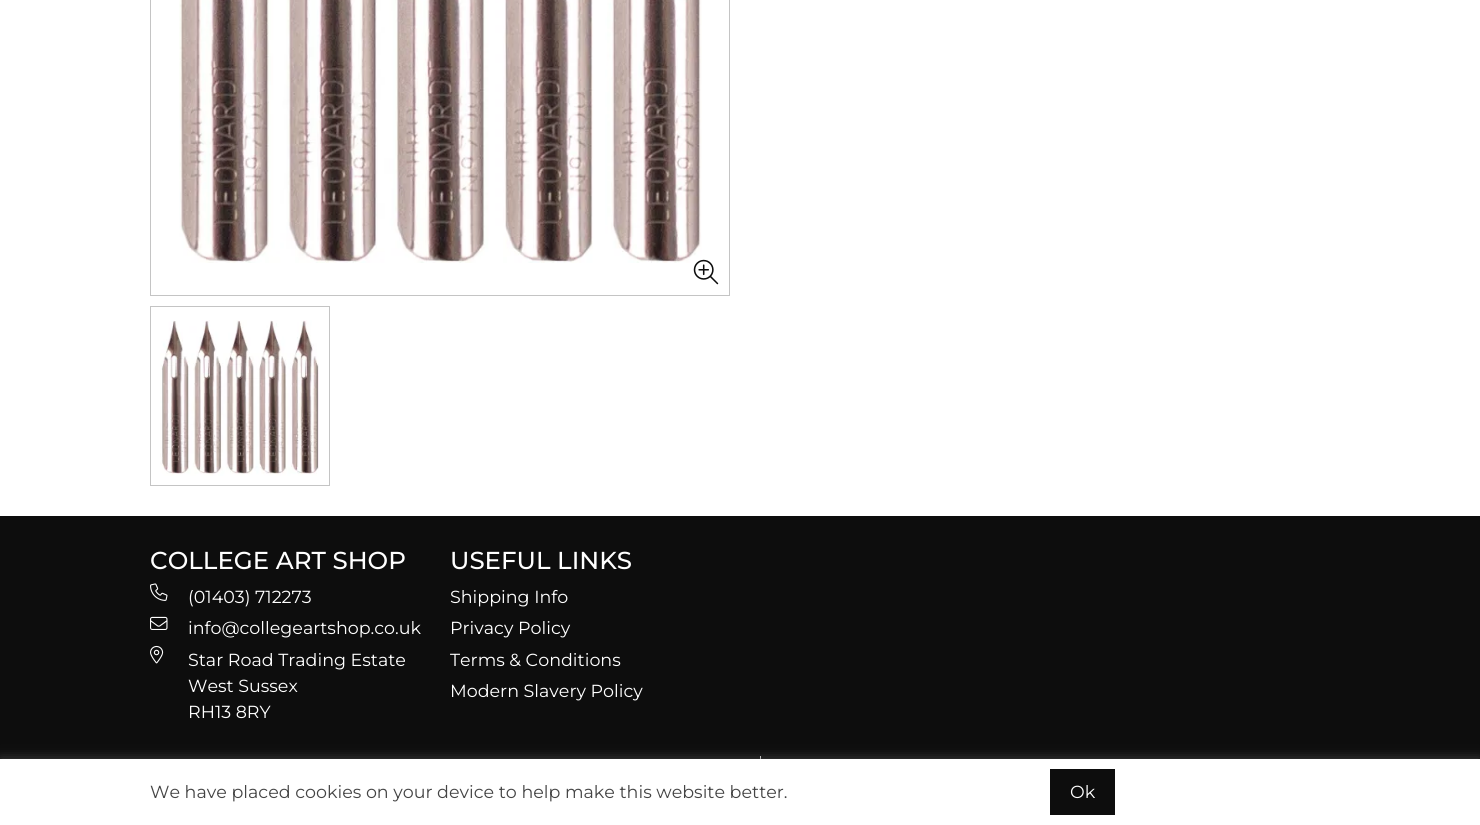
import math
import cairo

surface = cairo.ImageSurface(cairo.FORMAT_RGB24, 1480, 825)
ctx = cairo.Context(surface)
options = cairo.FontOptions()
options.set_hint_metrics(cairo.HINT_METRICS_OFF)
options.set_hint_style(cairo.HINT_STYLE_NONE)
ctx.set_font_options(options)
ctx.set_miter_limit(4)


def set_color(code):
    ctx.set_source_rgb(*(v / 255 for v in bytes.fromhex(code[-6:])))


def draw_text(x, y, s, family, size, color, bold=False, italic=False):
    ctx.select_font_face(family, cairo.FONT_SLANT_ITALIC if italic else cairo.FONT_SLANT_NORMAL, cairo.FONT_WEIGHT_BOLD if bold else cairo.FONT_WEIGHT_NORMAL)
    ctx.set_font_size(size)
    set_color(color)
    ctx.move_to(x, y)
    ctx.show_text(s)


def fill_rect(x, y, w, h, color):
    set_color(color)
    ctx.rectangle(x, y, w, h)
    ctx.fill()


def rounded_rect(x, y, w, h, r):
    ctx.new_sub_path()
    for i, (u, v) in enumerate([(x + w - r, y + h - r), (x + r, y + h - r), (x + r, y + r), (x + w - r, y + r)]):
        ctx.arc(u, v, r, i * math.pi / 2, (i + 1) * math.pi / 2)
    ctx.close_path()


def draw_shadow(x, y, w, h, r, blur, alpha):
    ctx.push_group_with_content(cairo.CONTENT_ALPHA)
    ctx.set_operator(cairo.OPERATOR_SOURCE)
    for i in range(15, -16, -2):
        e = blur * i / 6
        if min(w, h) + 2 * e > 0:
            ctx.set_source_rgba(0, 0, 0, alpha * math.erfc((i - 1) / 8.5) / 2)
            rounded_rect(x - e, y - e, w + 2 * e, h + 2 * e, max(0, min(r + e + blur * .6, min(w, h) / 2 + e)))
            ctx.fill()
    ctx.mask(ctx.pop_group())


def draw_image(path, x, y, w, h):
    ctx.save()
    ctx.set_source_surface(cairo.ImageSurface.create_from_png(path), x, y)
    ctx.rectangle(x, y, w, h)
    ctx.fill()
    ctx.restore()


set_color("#ffffff")
ctx.paint()
ctx.rectangle(150.5, -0.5, 579, 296)
set_color("#c4c4c4")
ctx.set_line_width(1)
ctx.stroke()
draw_image("assets/img1.png", 179, 0, 523, 263)
draw_image("assets/img2.png", 693, 259, 26, 26)
ctx.rectangle(150.5, 306.5, 179, 179)
ctx.stroke()
draw_image("assets/img3.png", 160, 320, 159, 156)
fill_rect(0, 516, 1480, 243, "#0d0d0d")
draw_text(150, 569, "COLLEGE ART SHOP", "Montserrat Thin", 24.5, "#ffffff")
draw_image("assets/img4.png", 150, 583, 18, 18)
draw_text(188, 603, "(01403) 712273", "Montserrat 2 Thin", 17.5, "#ffffff")
draw_image("assets/img5.png", 150, 616, 18, 14)
draw_text(188, 634, "info@collegeartshop.co.uk", "Montserrat 2 Thin", 17.5, "#ffffff")
draw_image("assets/img6.png", 150, 645, 14, 19)
draw_text(188, 666, "Star Road Trading Estate", "Montserrat 2 Thin", 17.5, "#ffffff")
draw_text(188, 692, "West Sussex", "Montserrat 2 Thin", 17.5, "#ffffff")
draw_text(188, 718, "RH13 8RY", "Montserrat 2 Thin", 17.5, "#ffffff")
draw_text(450, 569, "USEFUL LINKS", "Montserrat Thin", 24.5, "#ffffff")
draw_text(450, 603, "Shipping Info", "Montserrat 2 Thin", 17.5, "#ffffff")
draw_text(450, 634, "Privacy Policy", "Montserrat 2 Thin", 17.5, "#ffffff")
draw_text(450, 666, "Terms & Conditions", "Montserrat 2 Thin", 17.5, "#ffffff")
draw_text(450, 697, "Modern Slavery Policy", "Montserrat 2 Thin", 17.5, "#ffffff")
fill_rect(760, 756, 1, 3, "#ffffff")
set_color("#444444")
draw_shadow(0, 759, 1480, 66, 0, 6, 1)
fill_rect(0, 759, 1480, 66, "#ffffff")
draw_text(150, 798, "We have placed cookies on your device to help make this website better.", "Montserrat 2 Thin", 17.5, "#444444")
fill_rect(1050, 769, 65, 46, "#0d0d0d")
draw_text(1070, 798, "Ok", "Montserrat 2 Thin", 17.5, "#ffffff")
surface.write_to_png("output.png")
